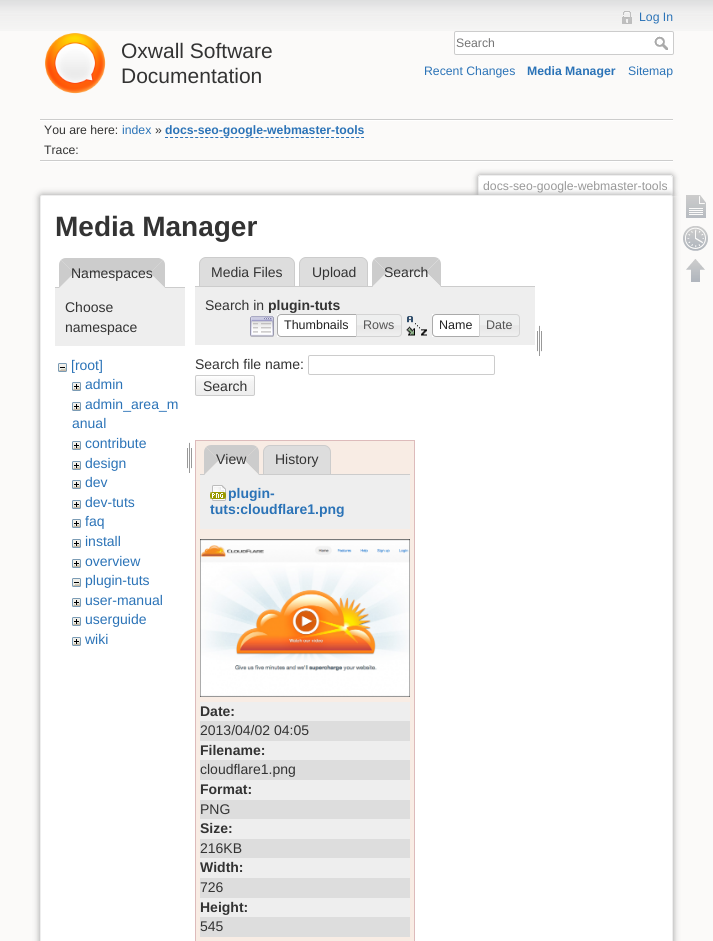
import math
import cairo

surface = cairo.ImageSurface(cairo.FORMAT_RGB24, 713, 941)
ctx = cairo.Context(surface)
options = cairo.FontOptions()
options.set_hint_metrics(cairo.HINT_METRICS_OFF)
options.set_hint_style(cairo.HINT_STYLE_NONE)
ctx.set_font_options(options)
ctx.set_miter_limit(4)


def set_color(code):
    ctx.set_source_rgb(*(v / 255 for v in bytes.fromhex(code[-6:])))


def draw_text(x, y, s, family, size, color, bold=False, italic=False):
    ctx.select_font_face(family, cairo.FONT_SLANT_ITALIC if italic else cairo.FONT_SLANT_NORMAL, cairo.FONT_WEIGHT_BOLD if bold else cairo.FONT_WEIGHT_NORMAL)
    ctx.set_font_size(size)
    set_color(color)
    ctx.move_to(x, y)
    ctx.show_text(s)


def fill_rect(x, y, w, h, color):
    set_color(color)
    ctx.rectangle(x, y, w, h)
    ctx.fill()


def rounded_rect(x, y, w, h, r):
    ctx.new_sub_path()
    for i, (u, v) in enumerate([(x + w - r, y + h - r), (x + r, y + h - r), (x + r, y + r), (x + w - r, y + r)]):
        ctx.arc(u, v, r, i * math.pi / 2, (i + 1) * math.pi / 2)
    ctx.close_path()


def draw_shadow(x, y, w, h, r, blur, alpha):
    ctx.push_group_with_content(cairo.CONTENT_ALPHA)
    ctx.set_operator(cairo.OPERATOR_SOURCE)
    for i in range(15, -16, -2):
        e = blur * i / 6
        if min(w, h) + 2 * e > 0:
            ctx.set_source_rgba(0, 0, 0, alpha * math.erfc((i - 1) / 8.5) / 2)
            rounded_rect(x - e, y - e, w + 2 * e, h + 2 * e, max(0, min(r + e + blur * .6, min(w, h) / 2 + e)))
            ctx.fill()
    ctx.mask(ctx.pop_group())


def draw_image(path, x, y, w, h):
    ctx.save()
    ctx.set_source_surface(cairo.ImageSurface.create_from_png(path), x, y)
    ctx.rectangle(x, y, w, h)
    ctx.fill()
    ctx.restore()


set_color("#fbfaf9")
ctx.paint()
draw_image("assets/img1.png", 0, 0, 713, 31)
draw_image("assets/img2.png", 45, 33, 61, 61)
draw_text(121, 58, "Oxwall Software", "Liberation Sans", 21, "#333333")
draw_text(121, 83, "Documentation", "Liberation Sans", 21, "#333333")
draw_image("assets/img3.png", 622, 11, 10, 13)
draw_text(639, 21, "Log In", "Liberation Sans", 12.25, "#2b73b7")
set_color("#ffffff")
rounded_rect(454.5, 31.5, 219, 23, 1.5)
ctx.fill_preserve()
set_color("#cccccc")
ctx.set_line_width(1)
ctx.stroke()
draw_text(456, 47, "Search", "Liberation Sans", 12.25, "#757575")
draw_image("assets/img4.png", 654, 36, 14, 14)
draw_text(424, 75, "Recent Changes", "Liberation Sans", 12.25, "#2b73b7")
draw_text(527, 75, "Media Manager", "Liberation Sans", 12.25, "#2b73b7", bold=True)
draw_text(628, 75, "Sitemap", "Liberation Sans", 12.25, "#2b73b7")
fill_rect(40, 119, 633, 1, "#cccccc")
fill_rect(40, 161, 633, 1, "#ffffff")
fill_rect(40, 120, 633, 1, "#ffffff")
draw_text(44, 134, "You are here:", "Liberation Sans", 12.25, "#333333")
draw_text(122, 134, "index", "Liberation Sans", 12.25, "#2b73b7")
draw_text(155, 134, "»", "Liberation Sans", 12.25, "#333333")
draw_text(165, 134, "docs-seo-google-webmaster-tools", "Liberation Sans", 12.25, "#2b73b7", bold=True)
ctx.new_path()
ctx.move_to(165, 137.5)
ctx.line_to(364, 137.5)
ctx.set_dash([3, 2.03])
ctx.stroke()
fill_rect(40, 160, 633, 1, "#cccccc")
draw_text(44, 154, "Trace:", "Liberation Sans", 12.25, "#333333")
ctx.save()
ctx.rectangle(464, 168, 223, 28)
ctx.clip()
set_color("#999999")
draw_shadow(478, 175, 195, 21, 2, 3, 1)
ctx.restore()
set_color("#ffffff")
ctx.new_path()
ctx.move_to(480, 176)
ctx.line_to(671, 176)
ctx.curve_to(671.5, 176, 672, 176.5, 672, 177)
ctx.line_to(672, 196)
ctx.line_to(479, 196)
ctx.line_to(479, 177)
ctx.curve_to(479, 176.5, 479.5, 176, 480, 176)
ctx.close_path()
ctx.fill()
fill_rect(479, 175, 193, 1, "#eeeeee")
fill_rect(672, 176, 1, 20, "#eeeeee")
fill_rect(478, 176, 1, 20, "#eeeeee")
draw_text(483, 190, "docs-seo-google-webmaster-tools", "Liberation Sans", 12.25, "#999999")
set_color("#999999")
draw_shadow(40, 195, 633, 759, 2, 3.5, 1)
set_color("#ffffff")
rounded_rect(40.5, 195.5, 632, 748, 1.5)
ctx.fill_preserve()
set_color("#eeeeee")
ctx.set_dash([])
ctx.stroke()
draw_text(55, 236, "Media Manager", "Liberation Sans", 28, "#333333", bold=True)
fill_rect(55, 287, 130, 1, "#cccccc")
set_color("#eeeeee")
ctx.new_path()
ctx.move_to(66, 258)
ctx.line_to(158, 258)
ctx.curve_to(162, 258, 165, 261, 165, 265)
ctx.line_to(165, 288)
ctx.line_to(59, 288)
ctx.line_to(59, 265)
ctx.curve_to(59, 261, 62, 258, 66, 258)
ctx.close_path()
ctx.fill()
set_color("#cccccc")
ctx.new_path()
ctx.move_to(66, 258)
ctx.line_to(159, 258)
ctx.line_to(163, 260)
ctx.line_to(150, 273)
ctx.line_to(74, 273)
ctx.line_to(61, 260)
ctx.curve_to(62, 259, 64, 258, 66, 258)
ctx.close_path()
ctx.fill()
ctx.new_path()
ctx.move_to(163, 260)
ctx.line_to(150, 273)
ctx.line_to(165, 288)
ctx.line_to(165, 265)
ctx.curve_to(165, 263, 164, 261, 163, 260)
ctx.close_path()
ctx.fill()
set_color("#eeeeee")
ctx.new_path()
ctx.move_to(165, 288)
ctx.line_to(150, 273)
ctx.line_to(74, 273)
ctx.line_to(59, 288)
ctx.close_path()
ctx.fill()
set_color("#cccccc")
ctx.new_path()
ctx.move_to(59, 288)
ctx.line_to(59, 265)
ctx.curve_to(59, 263, 60, 261, 61, 260)
ctx.line_to(74, 273)
ctx.close_path()
ctx.fill()
draw_text(71, 278, "Namespaces", "Liberation Sans", 14, "#333333")
fill_rect(55, 288, 130, 58, "#eeeeee")
draw_text(65, 312, "Choose", "Liberation Sans", 14, "#333333")
draw_text(65, 332, "namespace", "Liberation Sans", 14, "#333333")
draw_image("assets/img5.png", 58, 363, 9, 9)
draw_text(71, 370, "[root]", "Liberation Sans", 14, "#2b73b7")
draw_image("assets/img6.png", 72, 382, 9, 9)
draw_text(85, 389, "admin", "Liberation Sans", 14, "#2b73b7")
draw_image("assets/img6.png", 72, 402, 9, 9)
draw_text(85, 409, "admin_area_m", "Liberation Sans", 14, "#2b73b7")
draw_text(72, 428, "anual", "Liberation Sans", 14, "#2b73b7")
draw_image("assets/img6.png", 72, 441, 9, 9)
draw_text(85, 448, "contribute", "Liberation Sans", 14, "#2b73b7")
draw_image("assets/img6.png", 72, 461, 9, 9)
draw_text(85, 468, "design", "Liberation Sans", 14, "#2b73b7")
draw_image("assets/img6.png", 72, 480, 9, 9)
draw_text(85, 487, "dev", "Liberation Sans", 14, "#2b73b7")
draw_image("assets/img6.png", 72, 500, 9, 9)
draw_text(85, 507, "dev-tuts", "Liberation Sans", 14, "#2b73b7")
draw_image("assets/img6.png", 72, 519, 9, 9)
draw_text(85, 526, "faq", "Liberation Sans", 14, "#2b73b7")
draw_image("assets/img6.png", 72, 539, 9, 9)
draw_text(85, 546, "install", "Liberation Sans", 14, "#2b73b7")
draw_image("assets/img6.png", 72, 559, 9, 9)
draw_text(85, 566, "overview", "Liberation Sans", 14, "#2b73b7")
draw_image("assets/img5.png", 72, 578, 9, 9)
draw_text(85, 585, "plugin-tuts", "Liberation Sans", 14, "#2b73b7")
draw_image("assets/img6.png", 72, 598, 9, 9)
draw_text(85, 605, "user-manual", "Liberation Sans", 14, "#2b73b7")
draw_image("assets/img6.png", 72, 617, 9, 9)
draw_text(85, 624, "userguide", "Liberation Sans", 14, "#2b73b7")
draw_image("assets/img6.png", 72, 637, 9, 9)
draw_text(85, 644, "wiki", "Liberation Sans", 14, "#2b73b7")
draw_image("assets/img7.png", 187, 442, 5, 31)
set_color("#dddddd")
ctx.new_path()
ctx.move_to(206, 257.5)
ctx.line_to(288, 257.5)
ctx.curve_to(291.5, 257.5, 294.5, 260.5, 294.5, 264)
ctx.line_to(294.5, 286.5)
ctx.line_to(199.5, 286.5)
ctx.line_to(199.5, 264)
ctx.curve_to(199.5, 260.5, 202.5, 257.5, 206, 257.5)
ctx.close_path()
ctx.fill_preserve()
set_color("#cccccc")
ctx.stroke()
draw_text(211, 277, "Media Files", "Liberation Sans", 14, "#333333")
set_color("#dddddd")
ctx.new_path()
ctx.move_to(306, 257.5)
ctx.line_to(361, 257.5)
ctx.curve_to(364.5, 257.5, 367.5, 260.5, 367.5, 264)
ctx.line_to(367.5, 286.5)
ctx.line_to(299.5, 286.5)
ctx.line_to(299.5, 264)
ctx.curve_to(299.5, 260.5, 302.5, 257.5, 306, 257.5)
ctx.close_path()
ctx.fill_preserve()
set_color("#cccccc")
ctx.stroke()
draw_text(312, 277, "Upload", "Liberation Sans", 14, "#333333")
set_color("#cccccc")
ctx.new_path()
ctx.move_to(379, 257)
ctx.line_to(434, 257)
ctx.curve_to(436, 257, 438, 258, 439, 259)
ctx.line_to(426, 272)
ctx.line_to(387, 272)
ctx.line_to(374, 259)
ctx.curve_to(375, 258, 377, 257, 379, 257)
ctx.close_path()
ctx.fill()
fill_rect(195, 286, 340, 1, "#cccccc")
ctx.new_path()
ctx.move_to(439, 259)
ctx.line_to(426, 272)
ctx.line_to(441, 287)
ctx.line_to(441, 264)
ctx.curve_to(441, 262, 440, 260, 439, 259)
ctx.close_path()
ctx.fill()
set_color("#eeeeee")
ctx.new_path()
ctx.move_to(441, 287)
ctx.line_to(426, 272)
ctx.line_to(387, 272)
ctx.line_to(372, 287)
ctx.close_path()
ctx.fill()
set_color("#cccccc")
ctx.new_path()
ctx.move_to(372, 287)
ctx.line_to(372, 264)
ctx.curve_to(372, 262, 373, 260, 374, 259)
ctx.line_to(387, 272)
ctx.close_path()
ctx.fill()
draw_text(384, 277, "Search", "Liberation Sans", 14, "#333333")
fill_rect(195, 287, 340, 58, "#eeeeee")
draw_text(205, 310, "Search in", "Liberation Sans", 14, "#333333")
draw_text(268, 310, "plugin-tuts", "Liberation Sans", 14, "#333333", bold=True)
draw_image("assets/img8.png", 250, 316, 24, 21)
fill_rect(277, 314, 79, 23, "#ffffff")
ctx.new_path()
ctx.move_to(281, 314.5)
ctx.line_to(356.5, 314.5)
ctx.line_to(356.5, 336.5)
ctx.line_to(281, 336.5)
ctx.curve_to(279, 336.5, 277.5, 335, 277.5, 333)
ctx.line_to(277.5, 318)
ctx.curve_to(277.5, 316, 279, 314.5, 281, 314.5)
ctx.close_path()
set_color("#aaaaaa")
ctx.stroke()
draw_text(284, 329, "Thumbnails", "Liberation Sans", 12.5, "#212121")
draw_image("assets/img9.png", 357, 314, 45, 23)
ctx.new_path()
ctx.move_to(356.5, 314.5)
ctx.line_to(398, 314.5)
ctx.curve_to(400, 314.5, 401.5, 316, 401.5, 318)
ctx.line_to(401.5, 333)
ctx.curve_to(401.5, 335, 400, 336.5, 398, 336.5)
ctx.line_to(356.5, 336.5)
ctx.close_path()
set_color("#d3d3d3")
ctx.stroke()
draw_text(363, 329, "Rows", "Liberation Sans", 12.5, "#555555")
draw_image("assets/img10.png", 406, 316, 21, 20)
fill_rect(432, 314, 47, 23, "#ffffff")
ctx.new_path()
ctx.move_to(436, 314.5)
ctx.line_to(479.5, 314.5)
ctx.line_to(479.5, 336.5)
ctx.line_to(436, 336.5)
ctx.curve_to(434, 336.5, 432.5, 335, 432.5, 333)
ctx.line_to(432.5, 318)
ctx.curve_to(432.5, 316, 434, 314.5, 436, 314.5)
ctx.close_path()
set_color("#aaaaaa")
ctx.stroke()
draw_text(439, 329, "Name", "Liberation Sans", 12.5, "#212121")
draw_image("assets/img11.png", 480, 314, 40, 23)
ctx.new_path()
ctx.move_to(479.5, 314.5)
ctx.line_to(516, 314.5)
ctx.curve_to(518, 314.5, 519.5, 316, 519.5, 318)
ctx.line_to(519.5, 333)
ctx.curve_to(519.5, 335, 518, 336.5, 516, 336.5)
ctx.line_to(479.5, 336.5)
ctx.close_path()
set_color("#d3d3d3")
ctx.stroke()
draw_text(486, 329, "Date", "Liberation Sans", 12.5, "#555555")
draw_image("assets/img7.png", 537, 325, 5, 31)
draw_text(195, 369, "Search file name:", "Liberation Sans", 14, "#333333")
rounded_rect(308.5, 355.5, 186, 19, 1.5)
set_color("#cccccc")
ctx.stroke()
draw_image("assets/img12.png", 195, 375, 60, 21)
rounded_rect(195.5, 375.5, 59, 20, 1.5)
ctx.stroke()
draw_text(203, 391, "Search", "Liberation Sans", 14, "#333333")
set_color("#f8ece4")
ctx.rectangle(195.5, 440.5, 219, 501)
ctx.fill_preserve()
set_color("#ddbbbb")
ctx.stroke()
set_color("#cccccc")
ctx.new_path()
ctx.move_to(211, 445)
ctx.line_to(252, 445)
ctx.curve_to(254, 445, 256, 446, 257, 447)
ctx.line_to(244, 460)
ctx.line_to(219, 460)
ctx.line_to(206, 447)
ctx.curve_to(207, 446, 209, 445, 211, 445)
ctx.close_path()
ctx.fill()
set_color("#dddddd")
ctx.new_path()
ctx.move_to(270, 445.5)
ctx.line_to(324, 445.5)
ctx.curve_to(327.5, 445.5, 330.5, 448.5, 330.5, 452)
ctx.line_to(330.5, 474.5)
ctx.line_to(263.5, 474.5)
ctx.line_to(263.5, 452)
ctx.curve_to(263.5, 448.5, 266.5, 445.5, 270, 445.5)
ctx.close_path()
ctx.fill_preserve()
set_color("#cccccc")
ctx.stroke()
fill_rect(200, 474, 210, 1, "#cccccc")
ctx.new_path()
ctx.move_to(257, 447)
ctx.line_to(244, 460)
ctx.line_to(259, 475)
ctx.line_to(259, 452)
ctx.curve_to(259, 450, 258, 448, 257, 447)
ctx.close_path()
ctx.fill()
set_color("#eeeeee")
ctx.new_path()
ctx.move_to(259, 475)
ctx.line_to(244, 460)
ctx.line_to(219, 460)
ctx.line_to(204, 475)
ctx.close_path()
ctx.fill()
set_color("#cccccc")
ctx.new_path()
ctx.move_to(204, 475)
ctx.line_to(204, 452)
ctx.curve_to(204, 450, 205, 448, 206, 447)
ctx.line_to(219, 460)
ctx.close_path()
ctx.fill()
draw_text(216, 464, "View", "Liberation Sans", 14, "#333333")
draw_text(275, 464, "History", "Liberation Sans", 14, "#333333")
fill_rect(200, 475, 210, 54, "#eeeeee")
draw_image("assets/img13.png", 210, 485, 16, 16)
draw_text(228, 498, "plugin-", "Liberation Sans", 14, "#2b73b7", bold=True)
draw_text(210, 514, "tuts:cloudflare1.png", "Liberation Sans", 14, "#2b73b7", bold=True)
draw_image("assets/img14.png", 200, 539, 210, 158)
fill_rect(200, 702, 210, 19, "#eeeeee")
draw_text(200, 716, "Date:", "Liberation Sans", 14, "#333333", bold=True)
fill_rect(200, 721, 210, 20, "#dddddd")
draw_text(200, 735, "2013/04/02 04:05", "Liberation Sans", 14, "#333333")
fill_rect(200, 741, 210, 19, "#eeeeee")
draw_text(200, 755, "Filename:", "Liberation Sans", 14, "#333333", bold=True)
fill_rect(200, 760, 210, 20, "#dddddd")
draw_text(200, 774, "cloudflare1.png", "Liberation Sans", 14, "#333333")
fill_rect(200, 780, 210, 20, "#eeeeee")
draw_text(200, 794, "Format:", "Liberation Sans", 14, "#333333", bold=True)
fill_rect(200, 800, 210, 19, "#dddddd")
draw_text(200, 814, "PNG", "Liberation Sans", 14, "#333333")
fill_rect(200, 819, 210, 20, "#eeeeee")
draw_text(200, 833, "Size:", "Liberation Sans", 14, "#333333", bold=True)
fill_rect(200, 839, 210, 19, "#dddddd")
draw_text(200, 853, "216KB", "Liberation Sans", 14, "#333333")
fill_rect(200, 858, 210, 20, "#eeeeee")
draw_text(200, 872, "Width:", "Liberation Sans", 14, "#333333", bold=True)
fill_rect(200, 878, 210, 20, "#dddddd")
draw_text(200, 892, "726", "Liberation Sans", 14, "#333333")
fill_rect(200, 898, 210, 19, "#eeeeee")
draw_text(200, 912, "Height:", "Liberation Sans", 14, "#333333", bold=True)
fill_rect(200, 917, 210, 20, "#dddddd")
draw_text(200, 931, "545", "Liberation Sans", 14, "#333333")
draw_image("assets/img15.png", 686, 195, 20, 23)
draw_image("assets/img16.png", 683, 226, 25, 25)
draw_image("assets/img17.png", 686, 259, 19, 23)
surface.write_to_png("output.png")
